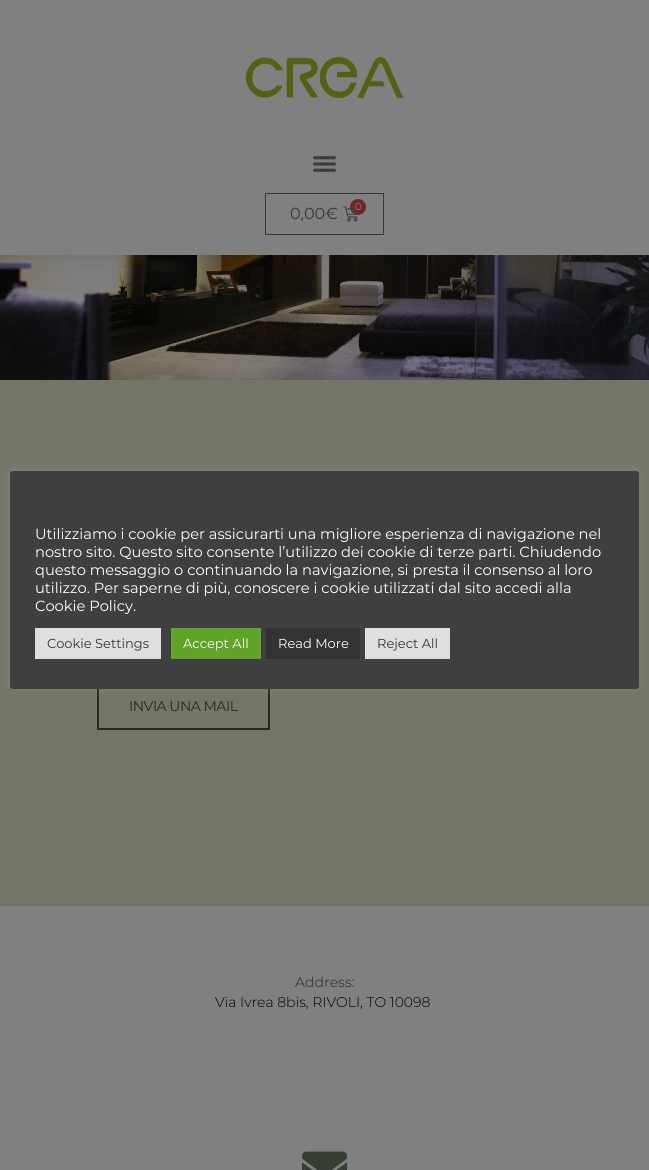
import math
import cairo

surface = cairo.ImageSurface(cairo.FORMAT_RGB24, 649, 1170)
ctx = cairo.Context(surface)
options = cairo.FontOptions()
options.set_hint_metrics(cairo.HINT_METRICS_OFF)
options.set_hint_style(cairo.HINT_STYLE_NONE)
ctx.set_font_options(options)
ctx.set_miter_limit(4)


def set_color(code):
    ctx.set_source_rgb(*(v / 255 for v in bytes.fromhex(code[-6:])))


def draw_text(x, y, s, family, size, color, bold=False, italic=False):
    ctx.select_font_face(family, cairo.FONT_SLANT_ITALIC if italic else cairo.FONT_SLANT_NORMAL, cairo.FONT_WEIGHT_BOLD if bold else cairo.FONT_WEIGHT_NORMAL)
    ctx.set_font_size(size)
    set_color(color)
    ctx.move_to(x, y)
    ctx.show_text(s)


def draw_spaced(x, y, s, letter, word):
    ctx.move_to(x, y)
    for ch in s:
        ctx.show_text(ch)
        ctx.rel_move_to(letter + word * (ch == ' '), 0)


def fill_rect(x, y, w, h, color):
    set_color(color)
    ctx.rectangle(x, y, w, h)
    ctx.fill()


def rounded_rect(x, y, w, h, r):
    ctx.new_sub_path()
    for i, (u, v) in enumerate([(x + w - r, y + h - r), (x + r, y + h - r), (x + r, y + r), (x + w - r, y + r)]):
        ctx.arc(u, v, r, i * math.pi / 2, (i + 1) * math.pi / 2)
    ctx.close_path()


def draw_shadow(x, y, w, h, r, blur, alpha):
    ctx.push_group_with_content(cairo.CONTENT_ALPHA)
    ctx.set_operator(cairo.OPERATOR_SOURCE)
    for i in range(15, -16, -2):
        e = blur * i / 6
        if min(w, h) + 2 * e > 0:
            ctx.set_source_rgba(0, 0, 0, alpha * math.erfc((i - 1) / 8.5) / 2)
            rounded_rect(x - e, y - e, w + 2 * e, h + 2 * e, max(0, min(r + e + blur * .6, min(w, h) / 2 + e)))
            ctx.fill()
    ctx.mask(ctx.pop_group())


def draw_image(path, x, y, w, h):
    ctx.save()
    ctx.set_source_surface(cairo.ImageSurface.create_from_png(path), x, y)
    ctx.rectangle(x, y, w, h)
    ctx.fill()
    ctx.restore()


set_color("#808080")
ctx.paint()
draw_image("assets/img4.png", 0, 255, 649, 125)
set_color("#000000")
draw_shadow(0, 5, 649, 255, 0, 15, 0.1)
fill_rect(0, 0, 649, 255, "#808080")
draw_image("assets/img1.png", 246, 57, 157, 42)
draw_image("assets/img2.png", 313, 156, 23, 16)
ctx.rectangle(265.5, 193.5, 118, 41)
set_color("#35393f")
ctx.set_line_width(1)
ctx.stroke()
draw_text(290, 219, "0,00€", "Montserrat", 16, "#35393f")
draw_image("assets/img3.png", 343, 206, 15, 16)
set_color("#6d2a28")
ctx.arc(358, 207, 8, 0, 2 * math.pi)
ctx.fill()
draw_text(355, 210, "0", "Montserrat", 10, "#808080")
fill_rect(0, 380, 649, 526, "#747566")
ctx.rectangle(98, 683, 171, 46)
set_color("#272727")
ctx.set_line_width(2)
ctx.stroke()
set_color("#acabab")
draw_shadow(10, 470, 629, 218, 3, 5, 0.3)
set_color("#3f3f3f")
rounded_rect(10, 471, 629, 218, 3)
ctx.fill()
draw_text(35, 539, "Utilizziamo i cookie per assicurarti una migliore esperienza di navigazione nel", "Montserrat", 14.65, "#ffffff")
draw_text(35, 557, "nostro sito. Questo sito consente l’utilizzo dei cookie di terze parti. Chiudendo", "Montserrat", 14.65, "#ffffff")
draw_text(35, 575, "questo messaggio o continuando la navigazione, si presta il consenso al loro", "Montserrat", 14.65, "#ffffff")
draw_text(35, 593, "utilizzo. Per saperne di più, conoscere i cookie utilizzati dal sito accedi alla", "Montserrat", 14.65, "#ffffff")
draw_text(35, 611, "Cookie Policy.", "Montserrat", 14.65, "#ffffff")
fill_rect(35, 628, 126, 31, "#dedfe0")
draw_text(47, 648, "Cookie Settings", "Montserrat", 13, "#333333")
fill_rect(171, 628, 90, 31, "#61a229")
draw_text(183, 648, "Accept All", "Montserrat", 13, "#ffffff")
fill_rect(266, 628, 94, 31, "#333333")
draw_text(278, 648, "Read More", "Montserrat", 13, "#ffffff")
fill_rect(365, 628, 85, 31, "#dedfe0")
draw_text(377, 648, "Reject All", "Montserrat", 13, "#333333")
ctx.set_font_size(14)
set_color("#272727")
draw_spaced(129, 711, "INVIA UNA MAIL", -0.5, 0)
draw_text(295, 987, "Address:", "Montserrat", 14, "#363e35")
draw_text(215, 1007, "Via Ivrea 8bis, RIVOLI, TO 10098", "Montserrat Light", 14, "#000000")
draw_image("assets/img5.png", 302, 1151, 45, 19)
surface.write_to_png("output.png")
